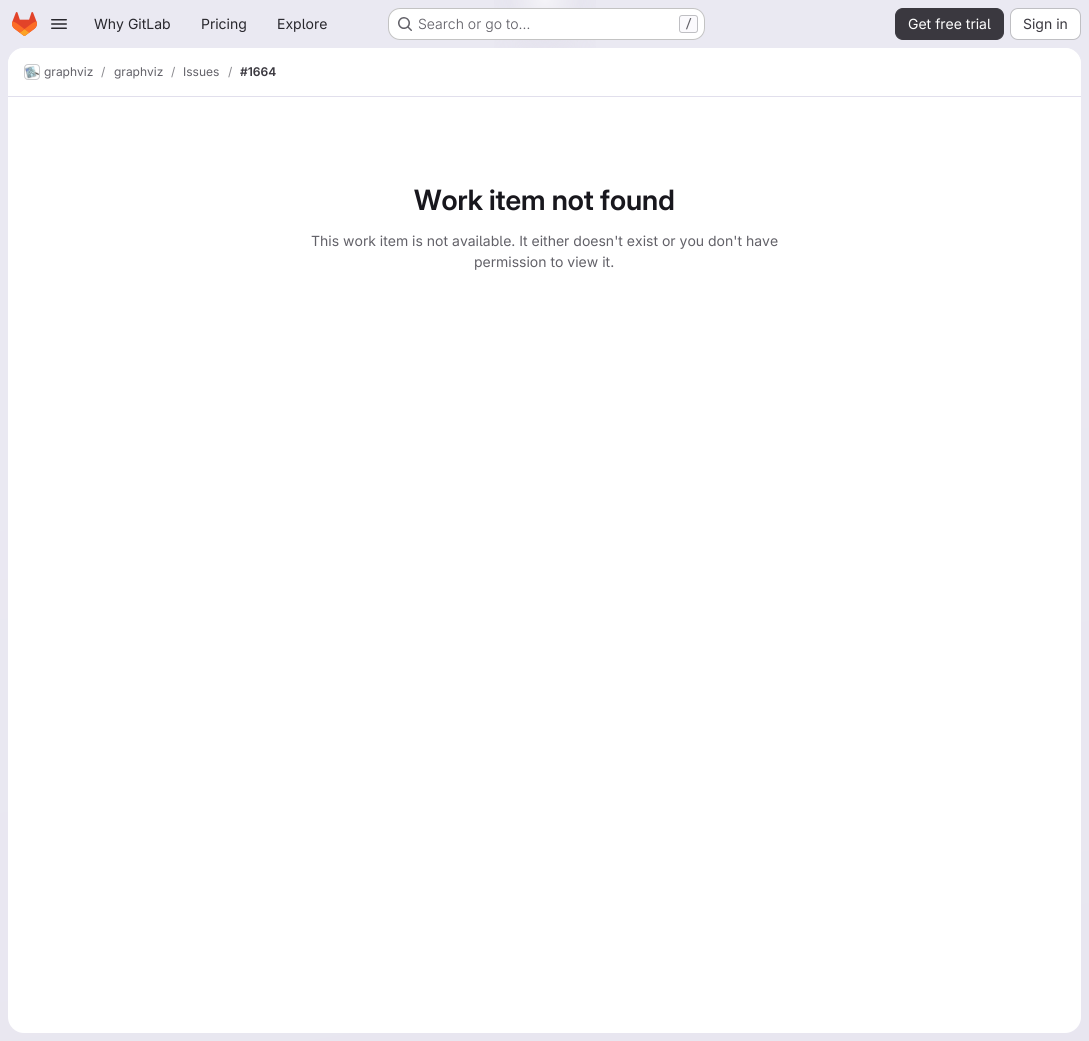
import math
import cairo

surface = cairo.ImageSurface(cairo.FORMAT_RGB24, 1089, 1041)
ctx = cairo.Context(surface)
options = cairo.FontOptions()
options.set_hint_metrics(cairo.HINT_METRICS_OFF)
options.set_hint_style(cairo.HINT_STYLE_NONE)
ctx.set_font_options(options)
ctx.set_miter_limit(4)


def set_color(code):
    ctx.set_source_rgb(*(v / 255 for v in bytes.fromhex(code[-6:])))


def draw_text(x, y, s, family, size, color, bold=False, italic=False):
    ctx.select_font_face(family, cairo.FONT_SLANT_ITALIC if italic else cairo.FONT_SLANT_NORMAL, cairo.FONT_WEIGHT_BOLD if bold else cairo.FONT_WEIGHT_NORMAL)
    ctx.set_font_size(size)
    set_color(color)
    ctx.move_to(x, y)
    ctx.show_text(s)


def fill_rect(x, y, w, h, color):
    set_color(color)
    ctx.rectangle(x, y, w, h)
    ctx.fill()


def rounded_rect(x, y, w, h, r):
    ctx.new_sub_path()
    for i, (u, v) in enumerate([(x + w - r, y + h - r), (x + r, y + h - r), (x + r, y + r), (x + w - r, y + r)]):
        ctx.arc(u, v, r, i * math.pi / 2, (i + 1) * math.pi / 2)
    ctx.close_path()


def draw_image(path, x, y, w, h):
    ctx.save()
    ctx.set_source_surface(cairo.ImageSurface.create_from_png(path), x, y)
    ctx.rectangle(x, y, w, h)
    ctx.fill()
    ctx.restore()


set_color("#ffffff")
ctx.paint()
gradient = cairo.LinearGradient(650, 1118, 439, -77)
gradient.add_color_stop_rgba(0, 0.91, 0.902, 0.941, 1)
gradient.add_color_stop_rgba(0.7, 0.918, 0.914, 0.949, 1)
ctx.set_source(gradient)
ctx.rectangle(0, 0, 1089, 1041)
ctx.fill()
gradient = cairo.RadialGradient(0, 0, 0, 0, 0, 1)
gradient.set_matrix(cairo.Matrix(1 / 545, 0, 0, 1 / 1041, -1 * 545 / 545, -1 * 0 / 1041))
gradient.add_color_stop_rgba(0, 0.894, 0.886, 0.929, 1)
gradient.add_color_stop_rgba(0.13, 0.894, 0.886, 0.929, 0)
ctx.set_source(gradient)
ctx.rectangle(494, 0, 102, 48)
ctx.fill()
gradient = cairo.RadialGradient(0, 0, 0, 0, 0, 1)
gradient.set_matrix(cairo.Matrix(1 / 545, 0, 0, 1 / 1041, -1 * 545 / 545, -1 * 0 / 1041))
gradient.add_color_stop_rgba(0, 0.894, 0.886, 0.925, 1)
gradient.add_color_stop_rgba(0.09, 0.894, 0.886, 0.925, 0)
ctx.set_source(gradient)
ctx.rectangle(543, 23, 4, 1)
ctx.fill()
gradient = cairo.RadialGradient(545, 0, 0, 545, 0, 1175)
gradient.add_color_stop_rgba(0, 1, 1, 1, 0.6)
gradient.add_color_stop_rgba(0.03, 1, 1, 1, 0)
ctx.set_source(gradient)
ctx.rectangle(511, 0, 68, 8)
ctx.fill()
draw_image("assets/img1.png", 12, 12, 25, 24)
draw_image("assets/img2.png", 51, 19, 16, 10)
draw_text(94, 29, "Why GitLab", "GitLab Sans", 14, "#28272d")
draw_text(201, 29, "Pricing", "GitLab Sans", 14, "#28272d")
draw_text(277, 29, "Explore", "GitLab Sans", 14, "#28272d")
set_color("#ffffff")
rounded_rect(388, 8, 317, 32, 12)
ctx.fill()
rounded_rect(388.5, 8.5, 316, 31, 11.5)
ctx.set_source_rgba(0.02, 0.02, 0.024, 0.24)
ctx.set_line_width(1)
ctx.stroke()
draw_image("assets/img3.png", 398, 17, 14, 14)
draw_text(418, 29, "Search or go to…", "GitLab Sans Light", 14, "#626168")
set_color("#fbfafd")
rounded_rect(679.5, 15.5, 18, 17, 2.5)
ctx.fill_preserve()
set_color("#bfbfc3")
ctx.stroke()
draw_text(685, 28, "/", "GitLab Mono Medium", 12, "#626168")
set_color("#3a383f")
rounded_rect(895.5, 8.5, 108, 31, 7.5)
ctx.fill_preserve()
ctx.stroke()
draw_text(908, 29, "Get free trial", "GitLab Sans", 14, "#ffffff")
rounded_rect(1010.5, 8.5, 70, 31, 7.5)
ctx.fill_preserve()
set_color("#bfbfc3")
ctx.stroke()
draw_text(1023, 29, "Sign in", "GitLab Sans", 14, "#3a383f")
set_color("#ffffff")
rounded_rect(8, 48, 1073, 985, 16)
ctx.fill()
ctx.new_path()
ctx.move_to(24, 48)
ctx.line_to(1065, 48)
ctx.curve_to(1074, 48, 1081, 55, 1081, 64)
ctx.line_to(1081, 97)
ctx.line_to(8, 97)
ctx.line_to(8, 64)
ctx.curve_to(8, 55, 15, 48, 24, 48)
ctx.close_path()
ctx.fill()
fill_rect(8, 96, 1073, 1, "#e1dfec")
rounded_rect(24.5, 64.5, 15, 15, 3.5)
set_color("#dcdcde")
ctx.stroke()
draw_image("assets/img4.png", 25, 65, 14, 14)
rounded_rect(24.5, 64.5, 15, 15, 3.5)
ctx.set_source_rgba(0.02, 0.02, 0.024, 0.08)
ctx.stroke()
draw_text(44, 76, "graphviz", "GitLab Sans", 12, "#626168")
draw_text(101, 76, "/", "GitLab Sans", 12, "#89888d")
draw_text(114, 76, "graphviz", "GitLab Sans", 12, "#626168")
draw_text(171, 76, "/", "GitLab Sans", 12, "#89888d")
draw_text(183, 76, "Issues", "GitLab Sans", 12, "#626168")
draw_text(228, 76, "/", "GitLab Sans", 12, "#89888d")
draw_text(240, 76, "#1664", "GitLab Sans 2 SemiBold", 12, "#3a383f")
draw_text(414, 210, "Work item not found", "GitLab Sans SemiBold", 28, "#18171d")
draw_text(311, 246, "This work item is not available. It either doesn't exist or you don't have", "GitLab Sans", 14, "#626168")
draw_text(474, 267, "permission to view it.", "GitLab Sans", 14, "#626168")
surface.write_to_png("output.png")
